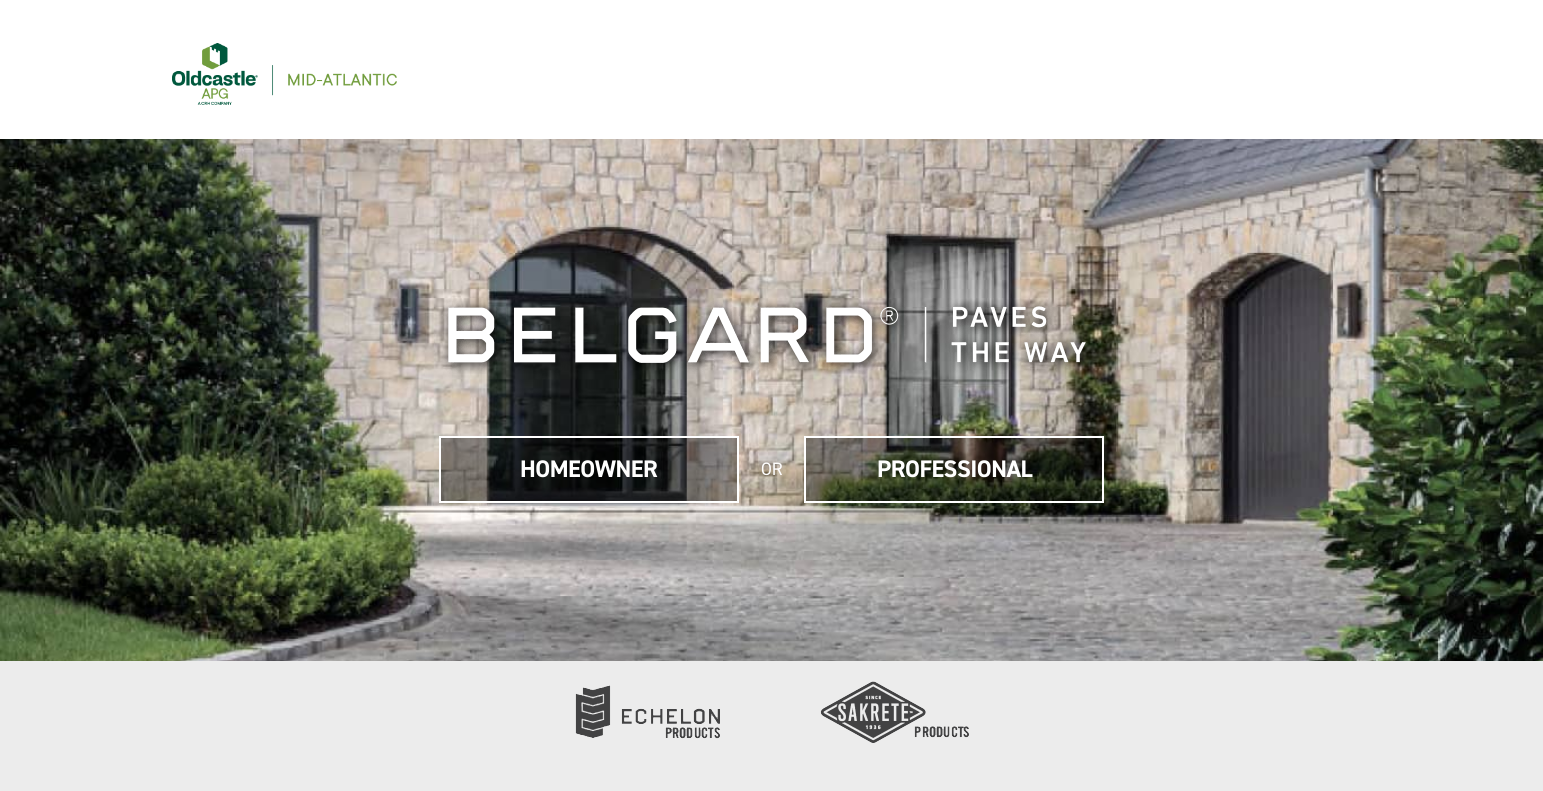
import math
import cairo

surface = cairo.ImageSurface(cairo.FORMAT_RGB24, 1543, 791)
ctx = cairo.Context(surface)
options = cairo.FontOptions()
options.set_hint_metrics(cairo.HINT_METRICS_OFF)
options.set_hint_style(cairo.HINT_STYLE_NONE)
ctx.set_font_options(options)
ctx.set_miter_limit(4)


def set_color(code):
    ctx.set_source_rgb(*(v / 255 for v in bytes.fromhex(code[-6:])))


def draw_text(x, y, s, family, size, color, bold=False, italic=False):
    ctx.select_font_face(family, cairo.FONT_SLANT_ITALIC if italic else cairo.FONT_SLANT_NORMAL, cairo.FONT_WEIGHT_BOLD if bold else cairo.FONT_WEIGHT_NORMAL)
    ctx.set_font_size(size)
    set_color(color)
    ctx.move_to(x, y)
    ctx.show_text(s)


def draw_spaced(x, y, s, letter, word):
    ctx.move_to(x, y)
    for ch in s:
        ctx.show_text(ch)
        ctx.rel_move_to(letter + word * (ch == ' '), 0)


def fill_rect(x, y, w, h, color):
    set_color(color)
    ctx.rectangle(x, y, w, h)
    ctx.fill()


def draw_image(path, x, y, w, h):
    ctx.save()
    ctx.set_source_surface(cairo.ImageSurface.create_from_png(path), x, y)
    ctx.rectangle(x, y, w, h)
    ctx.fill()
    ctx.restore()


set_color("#ececec")
ctx.paint()
fill_rect(0, 0, 1543, 139, "#ffffff")
draw_image("assets/img1.png", 172, 43, 225, 62)
draw_image("assets/img2.png", 0, 139, 1543, 522)
draw_image("assets/img3.png", 441, 299, 651, 75)
ctx.set_source_rgba(0, 0, 0, 0.4)
ctx.rectangle(440, 437, 298, 65)
ctx.fill_preserve()
set_color("#ffffff")
ctx.stroke()
ctx.select_font_face("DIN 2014", cairo.FONT_SLANT_NORMAL, cairo.FONT_WEIGHT_BOLD)
ctx.set_font_size(24)
draw_spaced(520, 477, "HOMEOWNER", -0.5, 0)
draw_text(761, 475, "OR", "DIN 2014", 18, "#ffffff")
ctx.set_source_rgba(0, 0, 0, 0.4)
ctx.rectangle(805, 437, 298, 65)
ctx.fill_preserve()
set_color("#ffffff")
ctx.stroke()
ctx.select_font_face("DIN 2014", cairo.FONT_SLANT_NORMAL, cairo.FONT_WEIGHT_BOLD)
ctx.set_font_size(24)
draw_spaced(877, 477, "PROFESSIONAL", -0.5, 0)
draw_image("assets/img4.png", 575, 685, 145, 54)
draw_image("assets/img5.png", 820, 681, 149, 62)
surface.write_to_png("output.png")
